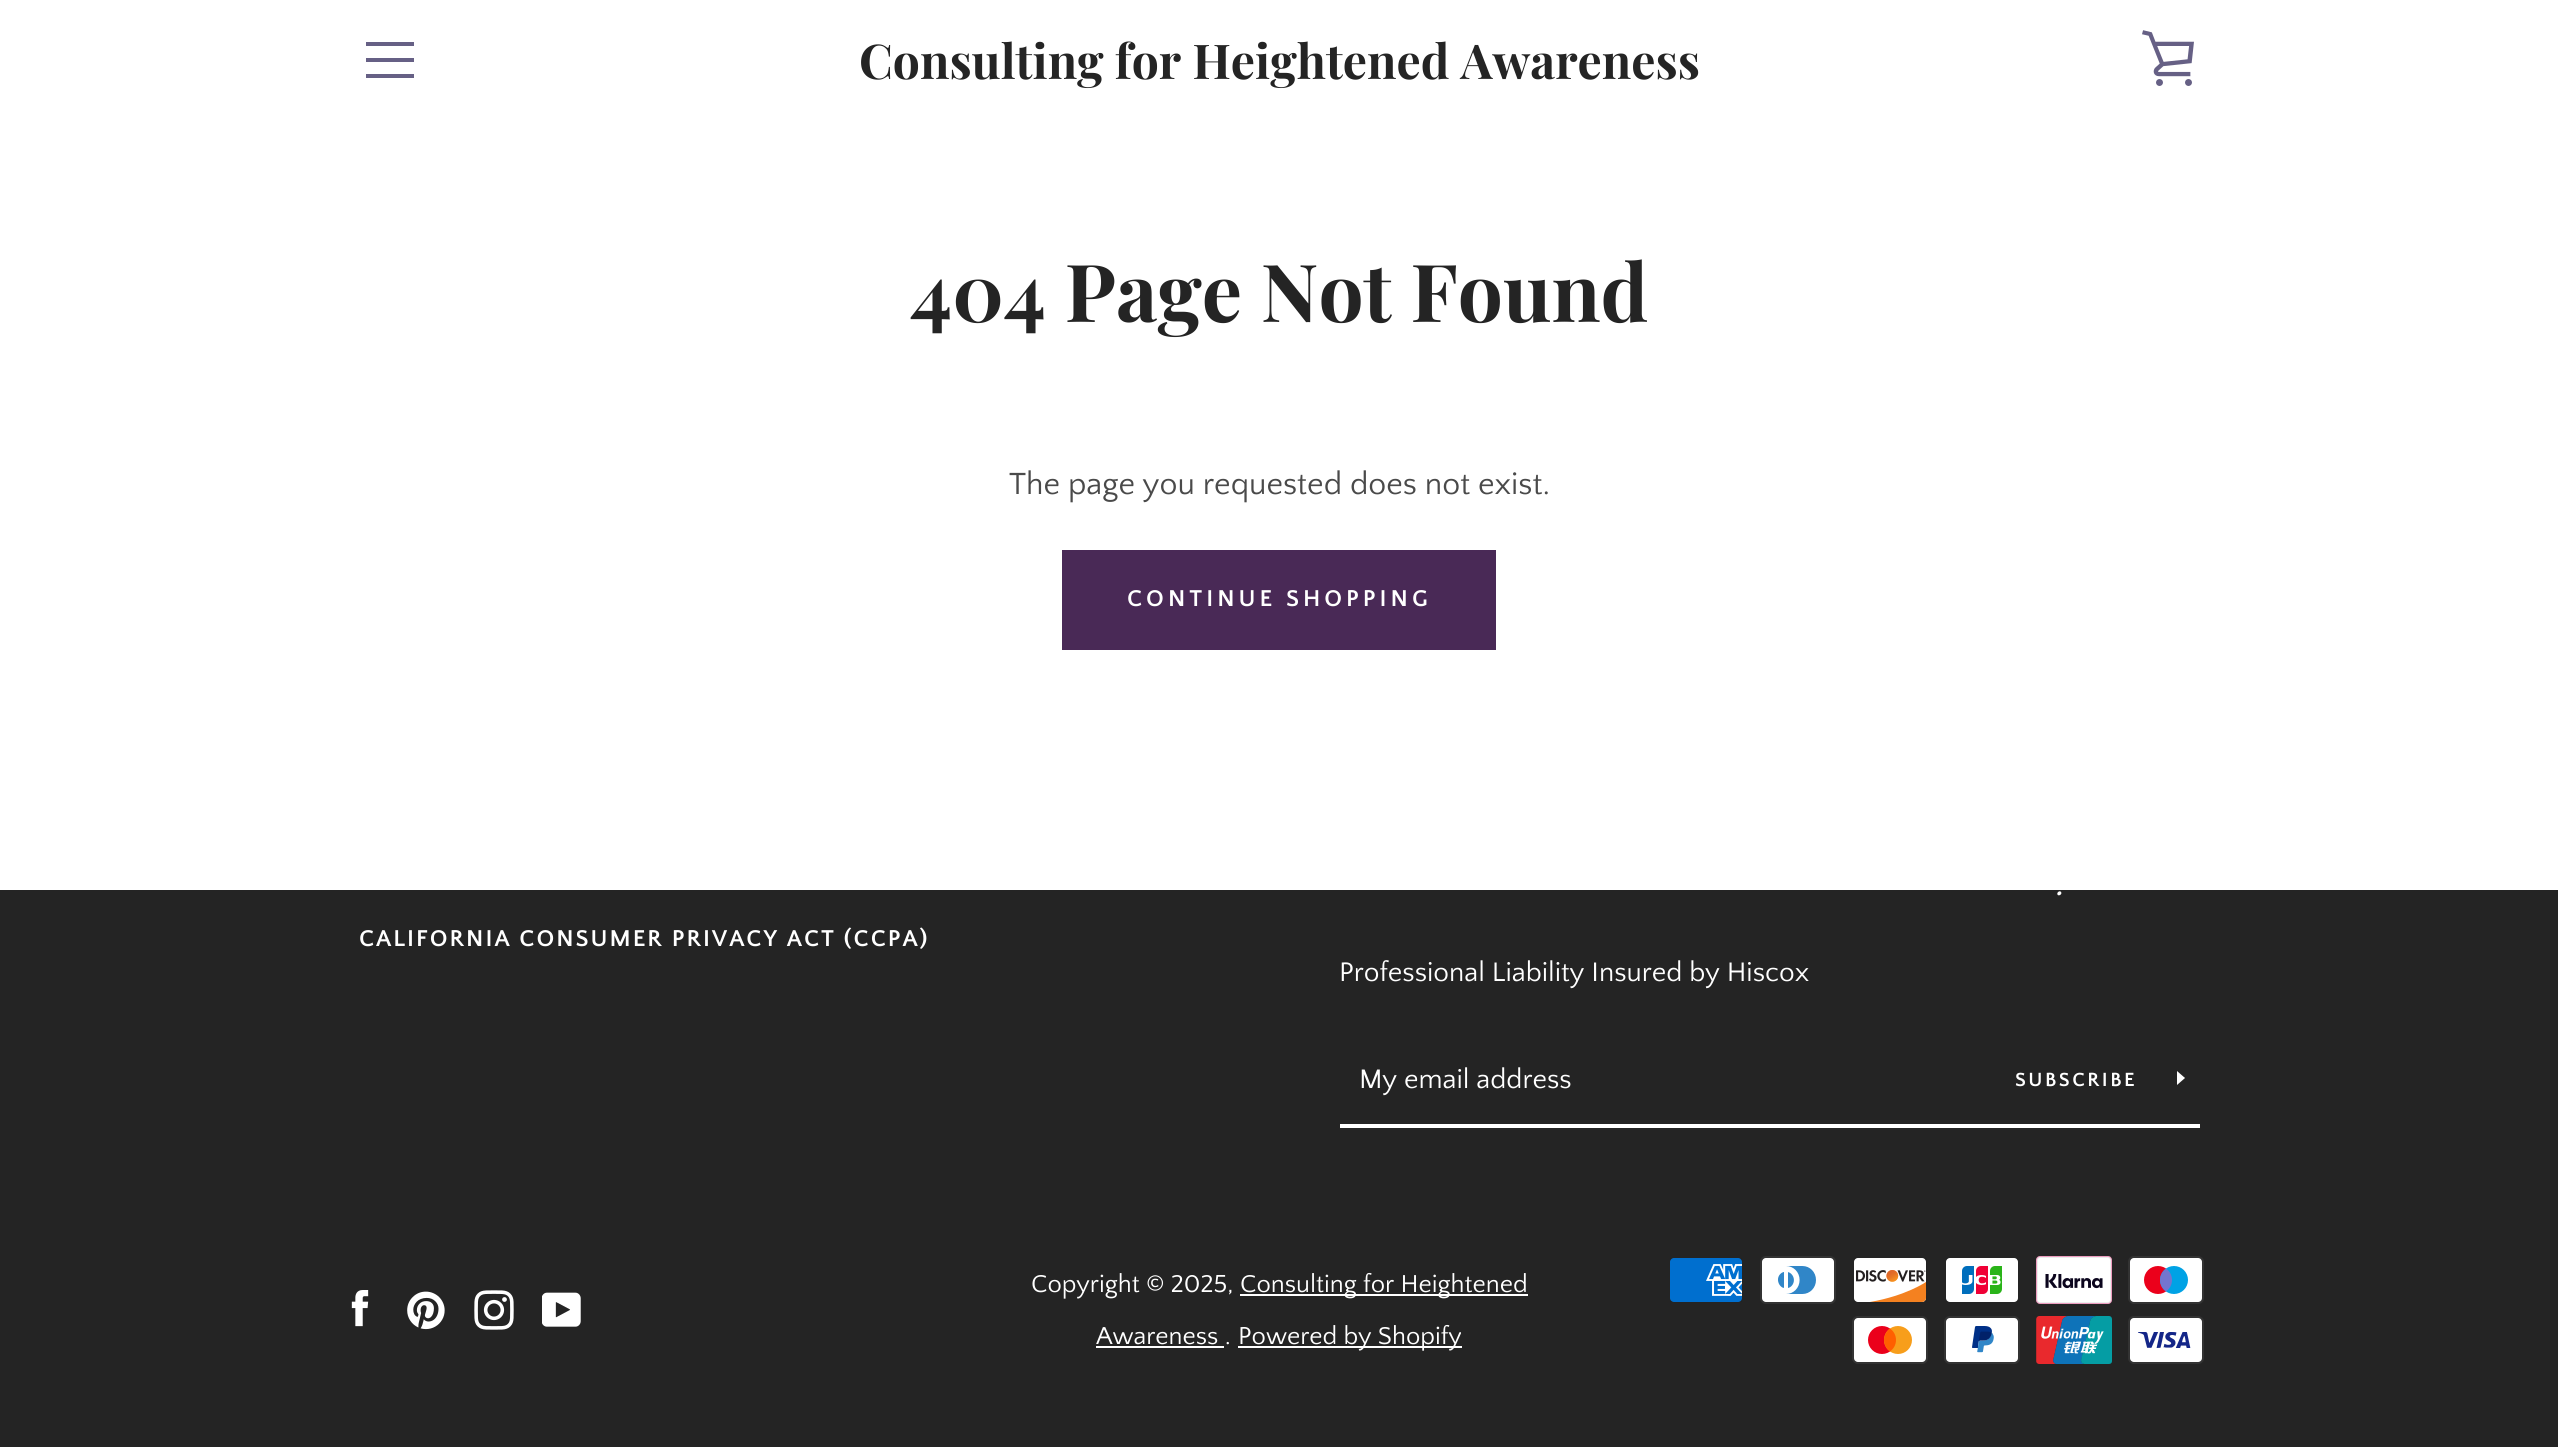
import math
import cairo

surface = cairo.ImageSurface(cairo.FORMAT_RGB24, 2558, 1447)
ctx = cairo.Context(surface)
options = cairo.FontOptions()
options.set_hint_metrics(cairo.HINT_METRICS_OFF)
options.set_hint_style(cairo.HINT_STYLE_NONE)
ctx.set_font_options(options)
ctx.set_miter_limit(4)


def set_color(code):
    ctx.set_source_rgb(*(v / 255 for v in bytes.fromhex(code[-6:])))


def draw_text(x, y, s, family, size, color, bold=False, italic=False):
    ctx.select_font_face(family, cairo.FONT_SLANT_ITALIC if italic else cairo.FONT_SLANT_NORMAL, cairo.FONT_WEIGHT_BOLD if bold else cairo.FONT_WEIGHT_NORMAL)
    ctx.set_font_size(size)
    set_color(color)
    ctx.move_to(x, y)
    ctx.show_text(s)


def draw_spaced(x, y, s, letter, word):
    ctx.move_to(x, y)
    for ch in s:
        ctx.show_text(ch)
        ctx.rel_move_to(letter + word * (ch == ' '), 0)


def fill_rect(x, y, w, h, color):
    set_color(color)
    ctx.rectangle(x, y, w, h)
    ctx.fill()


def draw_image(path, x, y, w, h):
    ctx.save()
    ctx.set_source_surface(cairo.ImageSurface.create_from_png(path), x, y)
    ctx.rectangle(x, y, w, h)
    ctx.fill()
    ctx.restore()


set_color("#ffffff")
ctx.paint()
fill_rect(366, 42, 48, 4, "#666085")
fill_rect(366, 58, 48, 4, "#666085")
fill_rect(366, 74, 48, 4, "#666085")
draw_text(859, 79, "Consulting for Heightened Awareness", "Playfair Display", 48, "#242424", bold=True)
draw_image("assets/img1.png", 2142, 30, 52, 56)
draw_text(910, 322, "404 Page Not Found", "Playfair Display", 80, "#242424", bold=True)
draw_text(1009, 494, "The page you requested does not exist.", "Quattrocento Sans", 32, "#4a4a4a")
fill_rect(1062, 550, 434, 100, "#492956")
ctx.select_font_face("Quattrocento Sans", cairo.FONT_SLANT_NORMAL, cairo.FONT_WEIGHT_BOLD)
ctx.set_font_size(24)
set_color("#ffffff")
draw_spaced(1127, 606, "CONTINUE SHOPPING", 4, 0)
fill_rect(0, 890, 2558, 557, "#242424")
set_color("#ffffff")
draw_spaced(359, 946, "CALIFORNIA CONSUMER PRIVACY ACT (CCPA)", 2, 0)
draw_text(2057, 895, ".", "Quattrocento Sans", 28, "#ffffff", bold=True, italic=True)
draw_text(1339, 981, "Professional Liability Insured by Hiscox", "Quattrocento Sans", 28, "#ffffff")
fill_rect(1340, 1124, 860, 4, "#ffffff")
draw_text(1359, 1088, "My email address", "Quattrocento Sans", 28, "#ffffff")
ctx.select_font_face("Quattrocento Sans", cairo.FONT_SLANT_NORMAL, cairo.FONT_WEIGHT_BOLD)
ctx.set_font_size(20)
draw_spaced(2015, 1086, "SUBSCRIBE", 2.5, 0)
ctx.new_path()
ctx.move_to(2185, 1078)
ctx.line_to(2177, 1085)
ctx.line_to(2177, 1071)
ctx.close_path()
ctx.fill()
draw_image("assets/img2.png", 351, 1290, 18, 37)
draw_image("assets/img3.png", 407, 1291, 38, 39)
draw_image("assets/img4.png", 474, 1290, 40, 40)
draw_image("assets/img5.png", 542, 1292, 39, 35)
draw_text(1031, 1292, "Copyright © 2025,", "Quattrocento Sans", 25.6, "#ffffff")
fill_rect(1240, 1294, 288, 2, "#ffffff")
draw_text(1240, 1292, "Consulting for Heightened", "Quattrocento Sans", 25.6, "#ffffff")
draw_text(1096, 1344, "Awareness .", "Quattrocento Sans", 25.6, "#ffffff")
fill_rect(1096, 1346, 128, 2, "#ffffff")
fill_rect(1238, 1346, 224, 2, "#ffffff")
draw_text(1238, 1344, "Powered by Shopify", "Quattrocento Sans", 25.6, "#ffffff")
draw_image("assets/img6.png", 1670, 1258, 72, 44)
draw_image("assets/img7.png", 1760, 1256, 76, 48)
draw_image("assets/img8.png", 1854, 1258, 73, 44)
draw_image("assets/img9.png", 1946, 1258, 72, 44)
draw_image("assets/img10.png", 2036, 1256, 76, 48)
draw_image("assets/img11.png", 2128, 1256, 76, 48)
draw_image("assets/img12.png", 1852, 1316, 76, 48)
draw_image("assets/img13.png", 1944, 1316, 76, 48)
draw_image("assets/img14.png", 2036, 1316, 76, 48)
draw_image("assets/img15.png", 2128, 1316, 76, 48)
surface.write_to_png("output.png")
